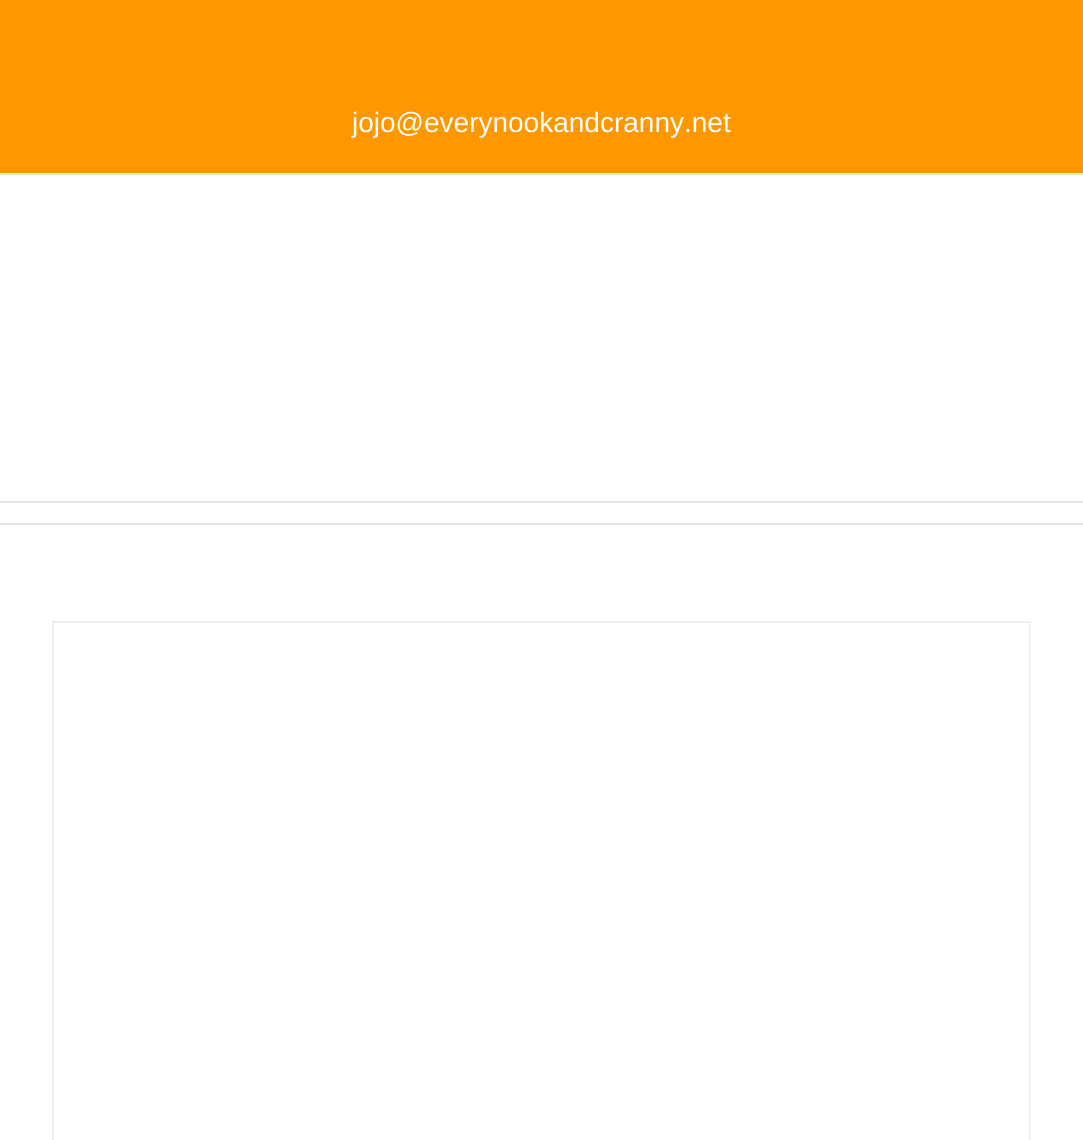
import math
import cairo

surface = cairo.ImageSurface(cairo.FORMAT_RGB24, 1083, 1140)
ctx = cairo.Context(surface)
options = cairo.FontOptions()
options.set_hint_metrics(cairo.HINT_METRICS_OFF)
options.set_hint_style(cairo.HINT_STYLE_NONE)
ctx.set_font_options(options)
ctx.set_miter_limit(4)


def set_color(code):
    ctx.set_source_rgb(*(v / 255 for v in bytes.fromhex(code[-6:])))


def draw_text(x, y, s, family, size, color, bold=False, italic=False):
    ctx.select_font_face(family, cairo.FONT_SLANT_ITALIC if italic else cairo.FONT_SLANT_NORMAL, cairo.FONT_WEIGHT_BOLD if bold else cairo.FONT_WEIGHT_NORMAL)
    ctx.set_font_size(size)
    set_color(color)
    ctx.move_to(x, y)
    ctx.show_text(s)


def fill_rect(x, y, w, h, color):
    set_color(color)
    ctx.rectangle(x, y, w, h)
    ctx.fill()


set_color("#ffffff")
ctx.paint()
fill_rect(0, 0, 1083, 173, "#ff9800")
fill_rect(0, 173, 1083, 2, "#e5e5e5")
draw_text(352, 132, "jojo@everynookandcranny.net", "Liberation Sans", 28, "#ffffff")
fill_rect(0, 501, 1083, 2, "#e5e5e5")
fill_rect(0, 523, 1083, 2, "#e5e5e5")
set_color("#eeeff0")
ctx.new_path()
ctx.move_to(52, 621)
ctx.line_to(1031, 621)
ctx.line_to(1029, 623)
ctx.line_to(54, 623)
ctx.close_path()
ctx.fill()
ctx.set_source_rgba(0.486, 0.522, 0.549, 0.13)
ctx.new_path()
ctx.move_to(1031, 621)
ctx.line_to(1031, 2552)
ctx.line_to(1029, 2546)
ctx.line_to(1029, 623)
ctx.close_path()
ctx.fill()
ctx.new_path()
ctx.move_to(52, 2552)
ctx.line_to(52, 621)
ctx.line_to(54, 623)
ctx.line_to(54, 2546)
ctx.close_path()
ctx.fill()
surface.write_to_png("output.png")
